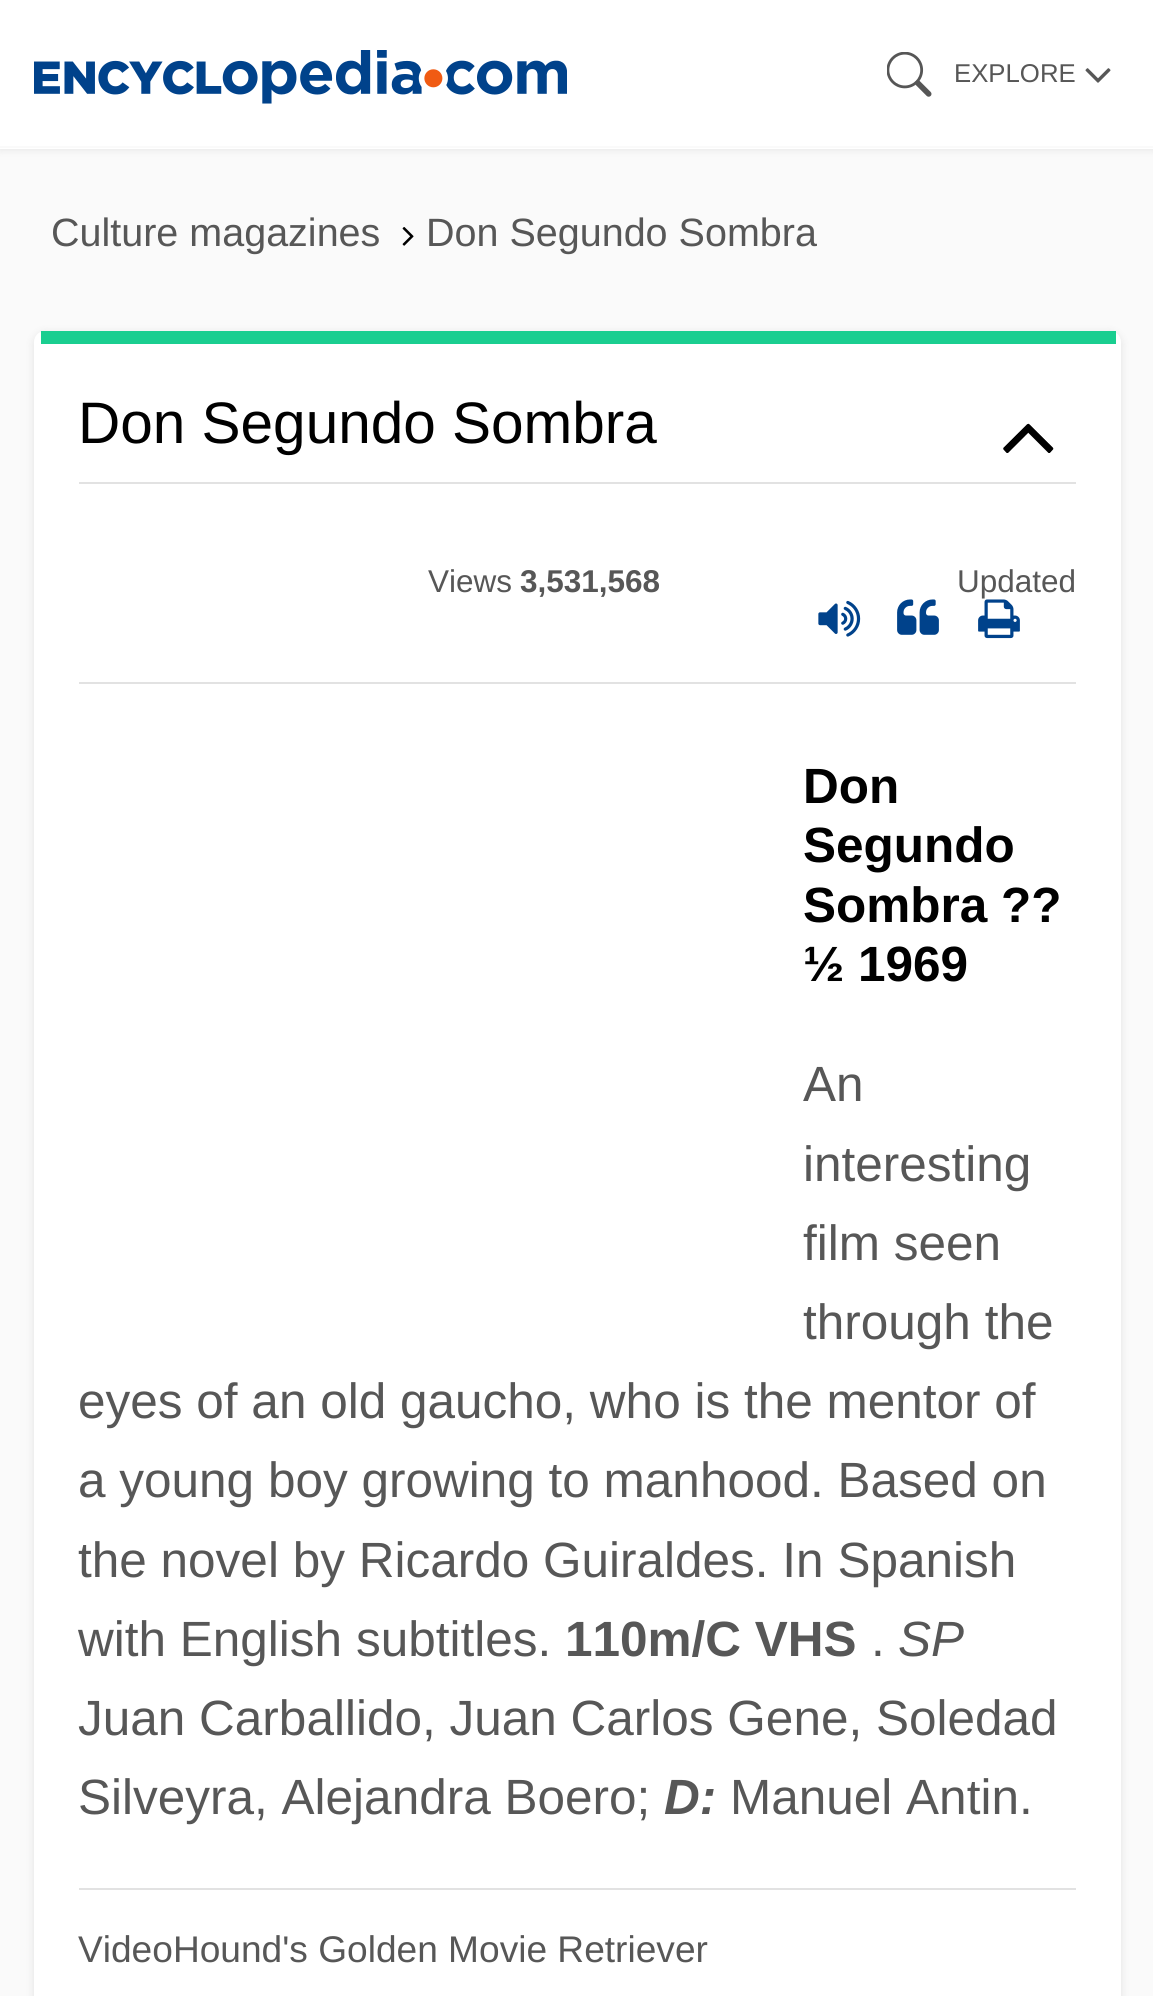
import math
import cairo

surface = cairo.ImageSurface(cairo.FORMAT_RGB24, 1153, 1996)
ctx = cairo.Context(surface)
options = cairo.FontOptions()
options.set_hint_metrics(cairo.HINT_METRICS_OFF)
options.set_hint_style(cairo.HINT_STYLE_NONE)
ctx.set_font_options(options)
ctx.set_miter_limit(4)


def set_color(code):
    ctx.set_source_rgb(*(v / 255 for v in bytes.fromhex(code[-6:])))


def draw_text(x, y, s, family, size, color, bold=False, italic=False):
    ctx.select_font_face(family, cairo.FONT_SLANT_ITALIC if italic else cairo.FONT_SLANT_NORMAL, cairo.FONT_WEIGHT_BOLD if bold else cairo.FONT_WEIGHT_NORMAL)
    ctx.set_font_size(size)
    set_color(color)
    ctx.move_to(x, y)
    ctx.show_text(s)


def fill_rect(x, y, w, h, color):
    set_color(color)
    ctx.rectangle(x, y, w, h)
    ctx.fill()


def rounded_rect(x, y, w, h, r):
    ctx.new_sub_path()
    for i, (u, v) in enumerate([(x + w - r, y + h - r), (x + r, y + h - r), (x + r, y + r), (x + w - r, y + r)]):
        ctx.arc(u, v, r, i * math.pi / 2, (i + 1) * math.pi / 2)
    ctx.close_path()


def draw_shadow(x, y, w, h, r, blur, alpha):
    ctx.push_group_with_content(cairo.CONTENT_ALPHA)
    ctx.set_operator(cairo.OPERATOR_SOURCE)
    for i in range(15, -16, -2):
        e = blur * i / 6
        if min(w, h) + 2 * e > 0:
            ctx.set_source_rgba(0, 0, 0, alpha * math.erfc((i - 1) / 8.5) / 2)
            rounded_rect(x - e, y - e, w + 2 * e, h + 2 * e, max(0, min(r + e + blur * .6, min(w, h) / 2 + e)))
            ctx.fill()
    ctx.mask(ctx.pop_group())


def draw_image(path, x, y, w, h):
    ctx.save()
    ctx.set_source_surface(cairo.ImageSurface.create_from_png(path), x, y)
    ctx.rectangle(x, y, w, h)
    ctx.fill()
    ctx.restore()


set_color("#fafafa")
ctx.paint()
set_color("#000000")
draw_shadow(0, 0, 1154, 149, 0, 4.5, 0.1)
fill_rect(0, 0, 1153, 149, "#ffffff")
fill_rect(0, 146, 1153, 2, "#fafafa")
draw_image("assets/img1.png", 34, 50, 533, 54)
draw_image("assets/img2.png", 887, 52, 45, 45)
draw_text(954, 82, "EXPLORE", "Liberation Sans", 25.75, "#575757")
draw_image("assets/img3.png", 1085, 68, 26, 15)
draw_text(51, 246, "Culture magazines", "Liberation Sans", 39.5, "#575757")
draw_image("assets/img4.png", 402, 227, 12, 19)
draw_text(426, 246, "Don Segundo Sombra", "Liberation Sans", 39.5, "#575757")
set_color("#000000")
draw_shadow(34, 333, 1087, 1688, 11, 4.5, 0.1)
set_color("#ffffff")
rounded_rect(34, 331, 1087, 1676, 11)
ctx.fill()
fill_rect(41, 331, 1075, 13, "#1ace90")
draw_text(78, 443, "Don Segundo Sombra", "Liberation Sans", 58.5, "#000000")
draw_image("assets/img5.png", 1003, 423, 51, 30)
fill_rect(79, 482, 997, 2, "#e2e2e2")
fill_rect(79, 682, 997, 2, "#e2e2e2")
draw_text(428, 592, "Views", "Liberation Sans", 31.5, "#575757")
draw_text(520, 592, "3,531,568", "Liberation Sans", 31.5, "#575757", bold=True)
draw_text(957, 592, "Updated", "Liberation Sans", 31.5, "#575757")
draw_image("assets/img6.png", 818, 600, 43, 37)
draw_image("assets/img7.png", 897, 599, 42, 36)
draw_image("assets/img8.png", 978, 599, 42, 40)
fill_rect(79, 1888, 997, 2, "#e2e2e2")
draw_text(803, 803, "Don", "Liberation Sans", 49.5, "#000000", bold=True)
draw_text(803, 862, "Segundo", "Liberation Sans", 49.5, "#000000", bold=True)
draw_text(803, 922, "Sombra ??", "Liberation Sans", 49.5, "#000000", bold=True)
draw_text(803, 981, "½ 1969", "Liberation Sans", 49.5, "#000000", bold=True)
draw_text(803, 1101, "An", "Liberation Sans", 49.5, "#575757")
draw_text(803, 1181, "interesting", "Liberation Sans", 49.5, "#575757")
draw_text(803, 1260, "film seen", "Liberation Sans", 49.5, "#575757")
draw_text(803, 1339, "through the", "Liberation Sans", 49.5, "#575757")
draw_text(78, 1418, "eyes of an old gaucho, who is the mentor of", "Liberation Sans", 49.5, "#575757")
draw_text(78, 1497, "a young boy growing to manhood. Based on", "Liberation Sans", 49.5, "#575757")
draw_text(78, 1577, "the novel by Ricardo Guiraldes. In Spanish", "Liberation Sans", 49.5, "#575757")
draw_text(78, 1656, "with English subtitles.", "Liberation Sans", 49.5, "#575757")
draw_text(565, 1656, "110m/C VHS", "Liberation Sans", 49.5, "#575757", bold=True)
draw_text(871, 1656, ".", "Liberation Sans", 49.5, "#575757")
draw_text(898, 1656, "SP", "Liberation Sans", 49.5, "#575757", italic=True)
draw_text(78, 1735, "Juan Carballido, Juan Carlos Gene, Soledad", "Liberation Sans", 49.5, "#575757")
draw_text(78, 1814, "Silveyra, Alejandra Boero;", "Liberation Sans", 49.5, "#575757")
draw_text(664, 1814, "D:", "Liberation Sans", 49.5, "#575757", bold=True, italic=True)
draw_text(730, 1814, "Manuel Antin.", "Liberation Sans", 49.5, "#575757")
draw_text(78, 1962, "VideoHound's Golden Movie Retriever", "Liberation Sans", 37.1, "#575757")
surface.write_to_png("output.png")
